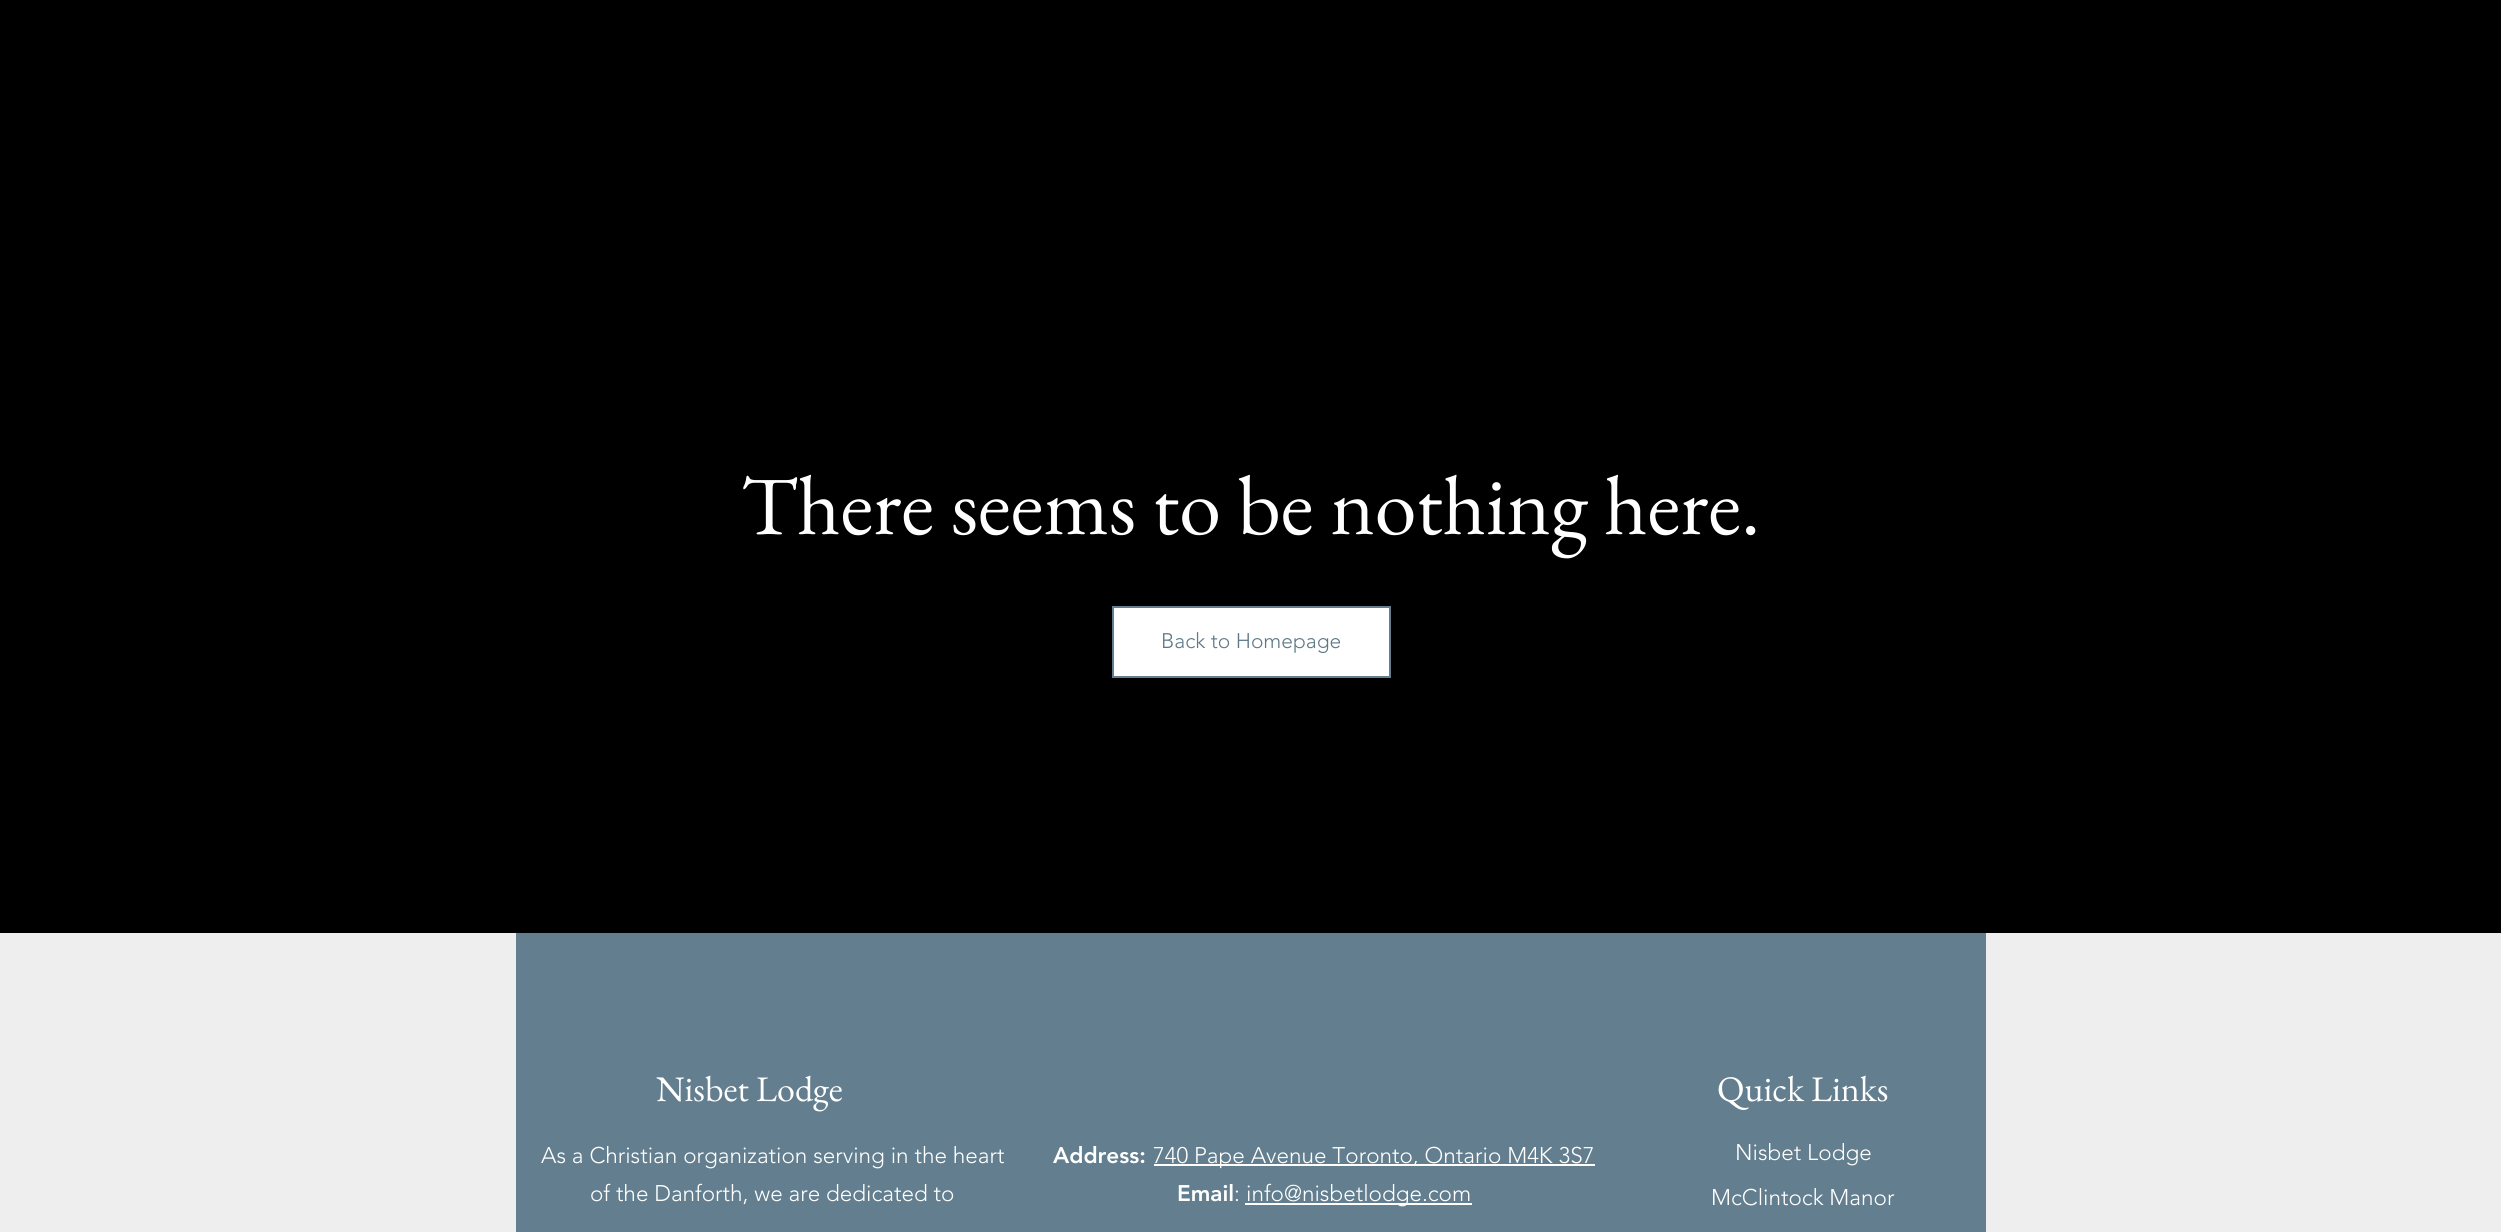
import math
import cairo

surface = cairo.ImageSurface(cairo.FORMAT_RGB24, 2501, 1232)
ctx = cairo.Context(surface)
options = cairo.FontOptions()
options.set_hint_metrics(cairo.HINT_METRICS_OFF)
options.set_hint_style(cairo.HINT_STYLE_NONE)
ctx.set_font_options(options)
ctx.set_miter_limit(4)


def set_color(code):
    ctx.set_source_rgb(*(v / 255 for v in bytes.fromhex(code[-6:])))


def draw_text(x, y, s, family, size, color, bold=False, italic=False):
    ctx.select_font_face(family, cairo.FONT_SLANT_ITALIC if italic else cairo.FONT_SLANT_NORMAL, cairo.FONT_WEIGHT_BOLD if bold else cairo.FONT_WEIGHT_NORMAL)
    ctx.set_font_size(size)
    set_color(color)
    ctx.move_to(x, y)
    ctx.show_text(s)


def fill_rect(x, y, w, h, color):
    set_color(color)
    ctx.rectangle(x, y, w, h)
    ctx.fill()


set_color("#000000")
ctx.paint()
draw_text(741, 534, "There seems to be nothing here.", "EB Garamond", 84, "#ffffff")
ctx.rectangle(1113, 607, 277, 70)
ctx.fill_preserve()
set_color("#637e8e")
ctx.stroke()
draw_text(1161, 648, "Back to Homepage", "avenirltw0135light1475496 Light", 21, "#5e7887")
fill_rect(0, 933, 2501, 299, "#eeeeee")
fill_rect(516, 933, 1470, 299, "#637e8e")
draw_text(656, 1101, "Nisbet Lodge", "EB Garamond", 36, "#ffffff")
draw_text(541, 1163, "As a Christian organization serving in the heart", "avenirltw0135light1475496 Light", 22.5, "#ffffff")
draw_text(590, 1201, "of the Danforth, we are dedicated to", "avenirltw0135light1475496 Light", 22.5, "#ffffff")
draw_text(1053, 1163, "Address:", "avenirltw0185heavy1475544 Black", 22.5, "#ffffff")
fill_rect(1154, 1164, 441, 2, "#ffffff")
draw_text(1153, 1163, "740 Pape Avenue Toronto, Ontario M4K 3S7", "avenirltw0135light1475496 Light", 22.5, "#ffffff")
draw_text(1177, 1201, "Email", "avenirltw0185heavy1475544 Black", 22.5, "#ffffff")
draw_text(1234, 1201, ":", "avenirltw0135light1475496 Light", 22.5, "#ffffff")
fill_rect(1245, 1203, 227, 2, "#ffffff")
draw_text(1246, 1201, "info@nisbetlodge.com", "avenirltw0135light1475496 Light", 22.5, "#ffffff")
draw_text(1717, 1101, "Quick Links", "EB Garamond", 36, "#ffffff")
draw_text(1735, 1160, "Nisbet Lodge", "avenirltw0135light1475496 Light", 22.5, "#ffffff")
draw_text(1711, 1205, "McClintock Manor", "avenirltw0135light1475496 Light", 22.5, "#ffffff")
surface.write_to_png("output.png")
